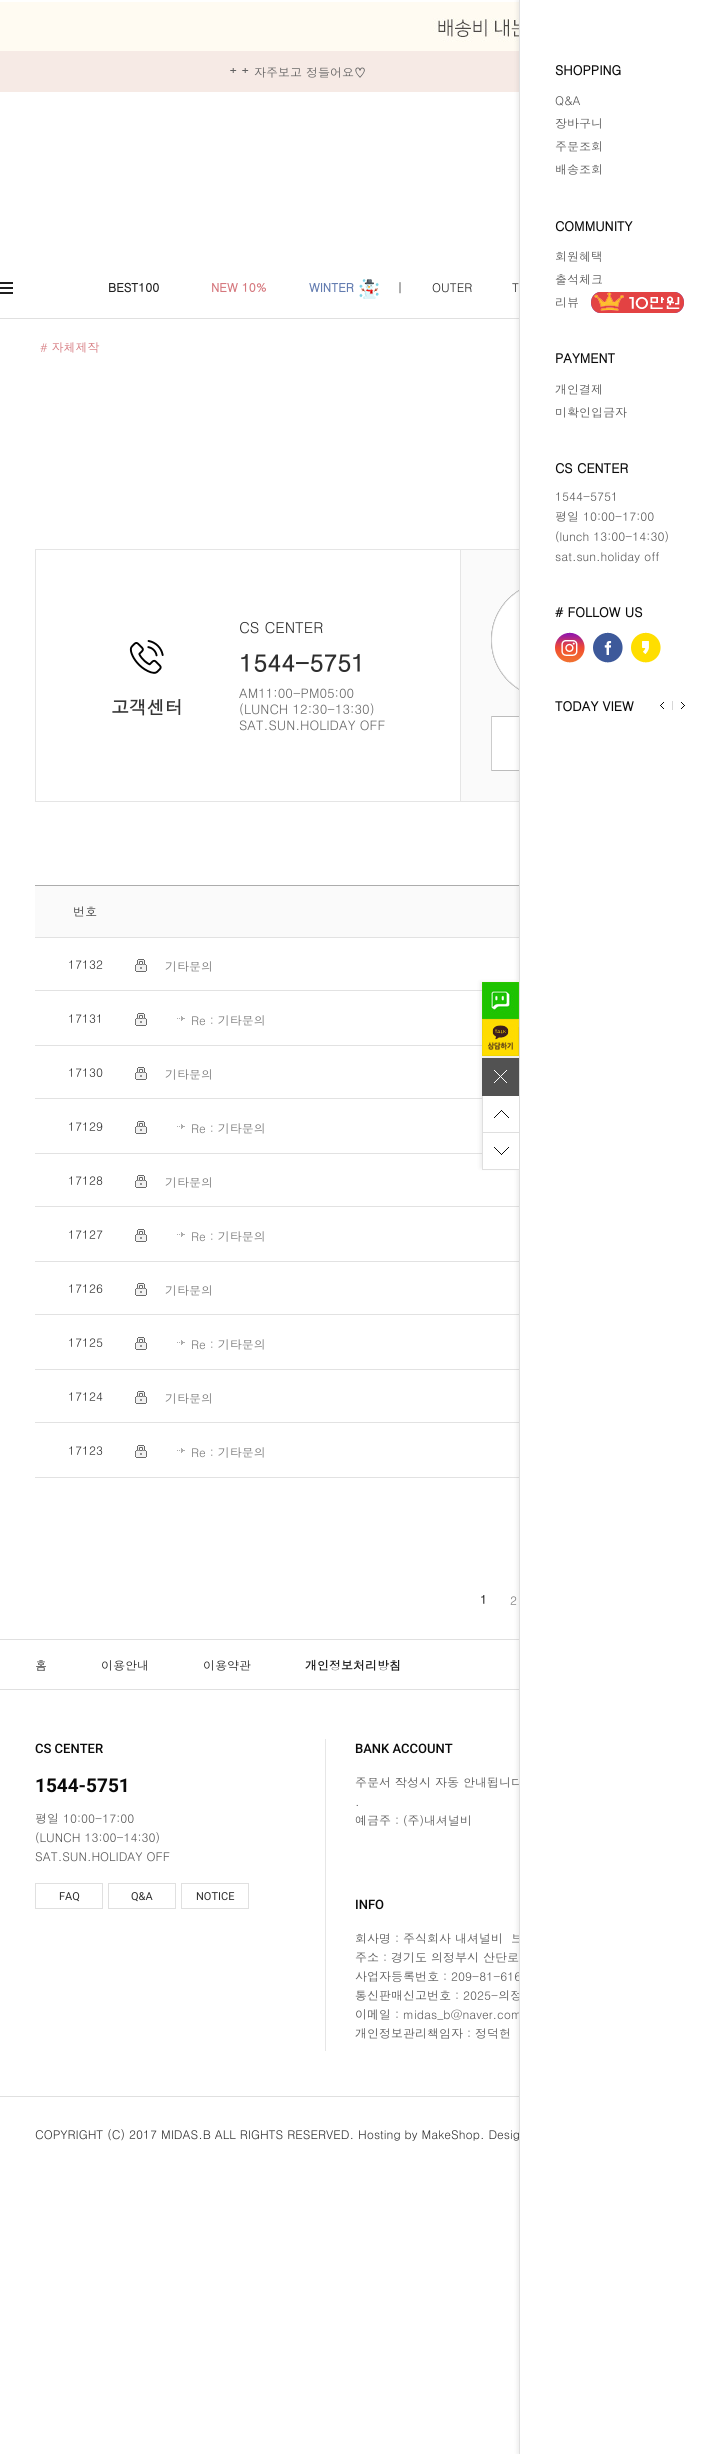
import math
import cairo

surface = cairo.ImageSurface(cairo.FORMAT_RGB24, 719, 2454)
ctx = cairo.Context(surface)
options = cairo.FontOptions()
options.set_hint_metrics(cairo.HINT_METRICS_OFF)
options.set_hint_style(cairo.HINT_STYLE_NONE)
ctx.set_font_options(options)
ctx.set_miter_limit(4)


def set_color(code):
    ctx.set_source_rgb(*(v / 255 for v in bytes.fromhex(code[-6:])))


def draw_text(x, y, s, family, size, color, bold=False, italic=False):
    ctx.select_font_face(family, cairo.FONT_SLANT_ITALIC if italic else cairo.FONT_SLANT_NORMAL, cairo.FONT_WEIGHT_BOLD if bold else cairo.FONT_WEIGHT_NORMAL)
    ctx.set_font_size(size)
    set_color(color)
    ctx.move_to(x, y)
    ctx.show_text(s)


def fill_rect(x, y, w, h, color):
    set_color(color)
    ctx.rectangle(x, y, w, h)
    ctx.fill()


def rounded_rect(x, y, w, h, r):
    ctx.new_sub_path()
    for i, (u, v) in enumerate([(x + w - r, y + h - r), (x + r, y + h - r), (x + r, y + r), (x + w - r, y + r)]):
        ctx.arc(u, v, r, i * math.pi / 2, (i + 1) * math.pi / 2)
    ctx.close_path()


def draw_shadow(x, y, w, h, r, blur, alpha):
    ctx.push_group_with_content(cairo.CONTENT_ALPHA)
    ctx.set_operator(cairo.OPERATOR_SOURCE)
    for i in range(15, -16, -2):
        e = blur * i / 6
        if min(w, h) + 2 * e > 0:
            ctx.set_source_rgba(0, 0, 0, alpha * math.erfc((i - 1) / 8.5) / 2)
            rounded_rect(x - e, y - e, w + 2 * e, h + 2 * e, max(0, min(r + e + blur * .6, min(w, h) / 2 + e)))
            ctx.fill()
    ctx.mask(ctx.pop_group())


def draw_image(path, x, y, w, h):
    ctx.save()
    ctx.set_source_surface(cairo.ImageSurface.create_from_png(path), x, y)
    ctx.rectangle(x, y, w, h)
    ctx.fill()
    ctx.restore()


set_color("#ffffff")
ctx.paint()
draw_image("assets/img1.png", 0, 2, 519, 49)
fill_rect(0, 51, 519, 41, "#f6eae5")
draw_image("assets/img2.png", 230, 68, 7, 5)
draw_image("assets/img2.png", 242, 68, 7, 5)
draw_text(254, 77, "자주보고 정들어요♡", "Dotum", 12, "#616161")
draw_image("assets/img3.png", 0, 282, 13, 12)
draw_text(108, 292, "BEST100", "Dotum", 12, "#1f1f1f", bold=True)
draw_text(211, 292, "NEW 10%", "Dotum", 12, "#d5777d", bold=True)
draw_text(309, 292, "WINTER", "Dotum", 12, "#637cb0", bold=True)
draw_image("assets/img4.png", 359, 279, 20, 20)
draw_text(397, 292, "|", "Dotum", 12, "#1f1f1f")
draw_text(432, 292, "OUTER", "Dotum", 12, "#1f1f1f")
draw_text(512, 292, "T", "Dotum", 12, "#1f1f1f")
fill_rect(0, 318, 519, 1, "#e0e0e0")
draw_text(40, 352, "# 자체제작", "Dotum", 12, "#d5777d")
ctx.rectangle(35.5, 549.5, 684, 252)
set_color("#e5e5e5")
ctx.set_line_width(1)
ctx.stroke()
fill_rect(461, 550, 58, 251, "#fafafa")
draw_image("assets/img17.png", 491, 590, 28, 100)
draw_image("assets/img18.png", 491, 590, 28, 100)
draw_image("assets/img19.png", 491, 716, 28, 55)
fill_rect(492, 717, 27, 53, "#ffffff")
fill_rect(35, 885, 484, 1, "#acacac")
fill_rect(35, 937, 484, 1, "#e2e2e2")
fill_rect(35, 886, 484, 51, "#fafafa")
fill_rect(35, 1206, 484, 1, "#e2e2e2")
fill_rect(35, 1261, 484, 1, "#e2e2e2")
fill_rect(35, 1314, 484, 1, "#e2e2e2")
fill_rect(35, 1369, 484, 1, "#e2e2e2")
fill_rect(35, 1422, 484, 1, "#e2e2e2")
fill_rect(35, 1477, 484, 1, "#e2e2e2")
fill_rect(0, 1639, 519, 1, "#e0e0e0")
fill_rect(0, 1689, 519, 1, "#e0e0e0")
fill_rect(0, 2096, 519, 1, "#e0e0e0")
set_color("#909090")
draw_shadow(517, 0, 200, 2454, 0, 2, 0.15)
draw_text(355, 1787, "주문서 작성시 자동 안내됩니다", "Dotum", 12, "#555555")
draw_text(355, 1943, "회사명 : 주식회사 내셔널비  브", "Dotum", 12, "#555555")
draw_text(355, 1981, "사업자등록번호 : 209-81-616", "Dotum", 12, "#555555")
draw_text(355, 2000, "통신판매신고번호 : 2025-의정", "Dotum", 12, "#555555")
draw_text(355, 2019, "이메일 : midas_b@naver.com", "Dotum", 12, "#555555")
fill_rect(520, 0, 199, 2454, "#ffffff")
fill_rect(519, 0, 1, 2454, "#e0e0e0")
draw_text(555, 75, "SHOPPING", "Dotum", 13, "#0a0a0a", bold=True)
draw_text(555, 105, "Q&A", "Dotum", 12, "#555555")
draw_text(555, 128, "장바구니", "Dotum", 12, "#555555")
draw_text(555, 151, "주문조회", "Dotum", 12, "#555555")
draw_text(555, 174, "배송조회", "Dotum", 12, "#555555")
draw_text(555, 231, "COMMUNITY", "Dotum", 13, "#0a0a0a", bold=True)
draw_text(555, 261, "회원혜택", "Dotum", 12, "#555555")
draw_text(555, 284, "출석체크", "Dotum", 12, "#555555")
draw_text(555, 307, "리뷰", "Dotum", 12, "#555555")
draw_image("assets/img5.png", 591, 292, 93, 21)
draw_text(555, 363, "PAYMENT", "Dotum", 13, "#0a0a0a", bold=True)
draw_text(555, 394, "개인결제", "Dotum", 12, "#555555")
draw_text(555, 417, "미확인입금자", "Dotum", 12, "#555555")
draw_text(555, 473, "CS CENTER", "Dotum", 13, "#0a0a0a", bold=True)
draw_text(555, 501, "1544-5751", "Dotum", 12, "#555555")
draw_text(555, 521, "평일 10:00-17:00", "Dotum", 12, "#555555")
draw_text(555, 541, "(lunch 13:00-14:30)", "Dotum", 12, "#555555")
draw_text(555, 561, "sat.sun.holiday off", "Dotum", 12, "#555555")
draw_text(555, 617, "# FOLLOW US", "Dotum", 13, "#0a0a0a", bold=True)
draw_image("assets/img6.png", 555, 632, 30, 31)
draw_image("assets/img7.png", 593, 632, 30, 31)
draw_image("assets/img8.png", 631, 632, 30, 31)
draw_text(555, 711, "TODAY VIEW", "Dotum", 13, "#0a0a0a", bold=True)
draw_image("assets/img9.png", 660, 702, 4, 7)
draw_image("assets/img10.png", 672, 701, 13, 9)
fill_rect(35, 990, 447, 1, "#e2e2e2")
fill_rect(35, 1045, 447, 1, "#e2e2e2")
fill_rect(35, 1098, 447, 1, "#e2e2e2")
fill_rect(35, 1153, 447, 1, "#e2e2e2")
set_color("#909090")
draw_shadow(480, 982, 37, 186, 0, 2, 0.15)
draw_image("assets/img11.png", 482, 982, 37, 37)
draw_image("assets/img12.png", 482, 1019, 37, 37)
draw_image("assets/img13.png", 482, 1058, 37, 38)
draw_image("assets/img14.png", 482, 1096, 37, 37)
draw_image("assets/img15.png", 482, 1133, 37, 37)
draw_image("assets/img16.png", 129, 640, 35, 34)
draw_text(111, 714, "고객센터", "Dotum", 18, "#353535", bold=True)
draw_text(239, 633, "CS CENTER", "Dotum", 15, "#2e2e2e")
draw_text(239, 672, "1544-5751", "Dotum", 24, "#2e2e2e", bold=True)
draw_text(239, 698, "AM11:00-PM05:00", "Dotum", 13, "#676767")
draw_text(239, 714, "(LUNCH 12:30-13:30)", "Dotum", 13, "#676767")
draw_text(239, 730, "SAT.SUN.HOLIDAY OFF", "Dotum", 13, "#676767")
fill_rect(460, 550, 1, 251, "#e5e5e5")
draw_text(73, 916, "번호", "Dotum", 12, "#353535")
draw_text(68, 969, "17132", "Dotum", 12, "#2e2e2e")
draw_image("assets/img20.png", 135, 959, 12, 13)
draw_text(165, 971, "기타문의", "Dotum", 12, "#787878")
draw_text(68, 1023, "17131", "Dotum", 12, "#2e2e2e")
draw_image("assets/img20.png", 135, 1013, 12, 13)
draw_image("assets/img21.png", 177, 1016, 8, 5)
draw_text(191, 1025, "Re : 기타문의", "Dotum", 12, "#787878")
draw_text(68, 1077, "17130", "Dotum", 12, "#2e2e2e")
draw_image("assets/img20.png", 135, 1067, 12, 13)
draw_text(165, 1079, "기타문의", "Dotum", 12, "#787878")
draw_text(68, 1131, "17129", "Dotum", 12, "#2e2e2e")
draw_image("assets/img20.png", 135, 1121, 12, 13)
draw_image("assets/img21.png", 177, 1124, 8, 5)
draw_text(191, 1133, "Re : 기타문의", "Dotum", 12, "#787878")
draw_text(68, 1185, "17128", "Dotum", 12, "#2e2e2e")
draw_image("assets/img20.png", 135, 1175, 12, 13)
draw_text(165, 1187, "기타문의", "Dotum", 12, "#787878")
draw_text(68, 1239, "17127", "Dotum", 12, "#2e2e2e")
draw_image("assets/img20.png", 135, 1229, 12, 13)
draw_image("assets/img21.png", 177, 1232, 8, 5)
draw_text(191, 1241, "Re : 기타문의", "Dotum", 12, "#787878")
draw_text(68, 1293, "17126", "Dotum", 12, "#2e2e2e")
draw_image("assets/img20.png", 135, 1283, 12, 13)
draw_text(165, 1295, "기타문의", "Dotum", 12, "#787878")
draw_text(68, 1347, "17125", "Dotum", 12, "#2e2e2e")
draw_image("assets/img20.png", 135, 1337, 12, 13)
draw_image("assets/img21.png", 177, 1340, 8, 5)
draw_text(191, 1349, "Re : 기타문의", "Dotum", 12, "#787878")
draw_text(68, 1401, "17124", "Dotum", 12, "#2e2e2e")
draw_image("assets/img20.png", 135, 1391, 12, 13)
draw_text(165, 1403, "기타문의", "Dotum", 12, "#787878")
draw_text(68, 1455, "17123", "Dotum", 12, "#2e2e2e")
draw_image("assets/img20.png", 135, 1445, 12, 13)
draw_image("assets/img21.png", 177, 1448, 8, 5)
draw_text(191, 1457, "Re : 기타문의", "Dotum", 12, "#787878")
draw_text(480, 1604, "1", "Dotum", 12, "#2e2e2e", bold=True)
draw_text(510, 1605, "2", "Dotum", 12, "#787878")
draw_text(35, 1670, "홈", "Dotum", 12, "#1f1f1f")
draw_text(101, 1670, "이용안내", "Dotum", 12, "#1f1f1f")
draw_text(203, 1670, "이용약관", "Dotum", 12, "#1f1f1f")
draw_text(305, 1670, "개인정보처리방침", "Dotum", 12, "#1f1f1f", bold=True)
draw_text(35, 1753, "CS CENTER", "Roboto Medium", 13, "#0a0a0a")
draw_text(35, 1792, "1544-5751", "Roboto", 19, "#0a0a0a", bold=True)
draw_text(35, 1823, "평일 10:00-17:00", "Dotum", 12, "#555555")
draw_text(35, 1842, "(LUNCH 13:00-14:30)", "Dotum", 12, "#555555")
draw_text(35, 1861, "SAT.SUN.HOLIDAY OFF", "Dotum", 12, "#555555")
ctx.rectangle(35.5, 1883.5, 67, 25)
set_color("#e0e0e0")
ctx.stroke()
draw_text(59, 1900, "FAQ", "Roboto", 11, "#2e2e2e")
ctx.rectangle(108.5, 1883.5, 67, 25)
set_color("#e0e0e0")
ctx.stroke()
draw_text(131, 1900, "Q&A", "Roboto", 11, "#2e2e2e")
ctx.rectangle(181.5, 1883.5, 67, 25)
set_color("#e0e0e0")
ctx.stroke()
draw_text(196, 1900, "NOTICE", "Roboto", 11, "#2e2e2e")
fill_rect(325, 1739, 1, 312, "#e6e6e6")
draw_text(355, 1753, "BANK ACCOUNT", "Roboto Medium", 13, "#0a0a0a")
draw_text(355, 1806, ".", "Dotum", 12, "#555555")
draw_text(355, 1825, "예금주 : (주)내셔널비", "Dotum", 12, "#555555")
draw_text(355, 1909, "INFO", "Roboto Medium", 13, "#0a0a0a")
draw_text(355, 1962, "주소 : 경기도 의정부시 산단로", "Dotum", 12, "#555555")
draw_text(355, 2038, "개인정보관리책임자 : 정덕헌", "Dotum", 12, "#555555")
draw_text(35, 2139, "COPYRIGHT (C) 2017 MIDAS.B ALL RIGHTS RESERVED. Hosting by MakeShop. Desig", "Dotum", 12, "#2e2e2e")
surface.write_to_png("output.png")
